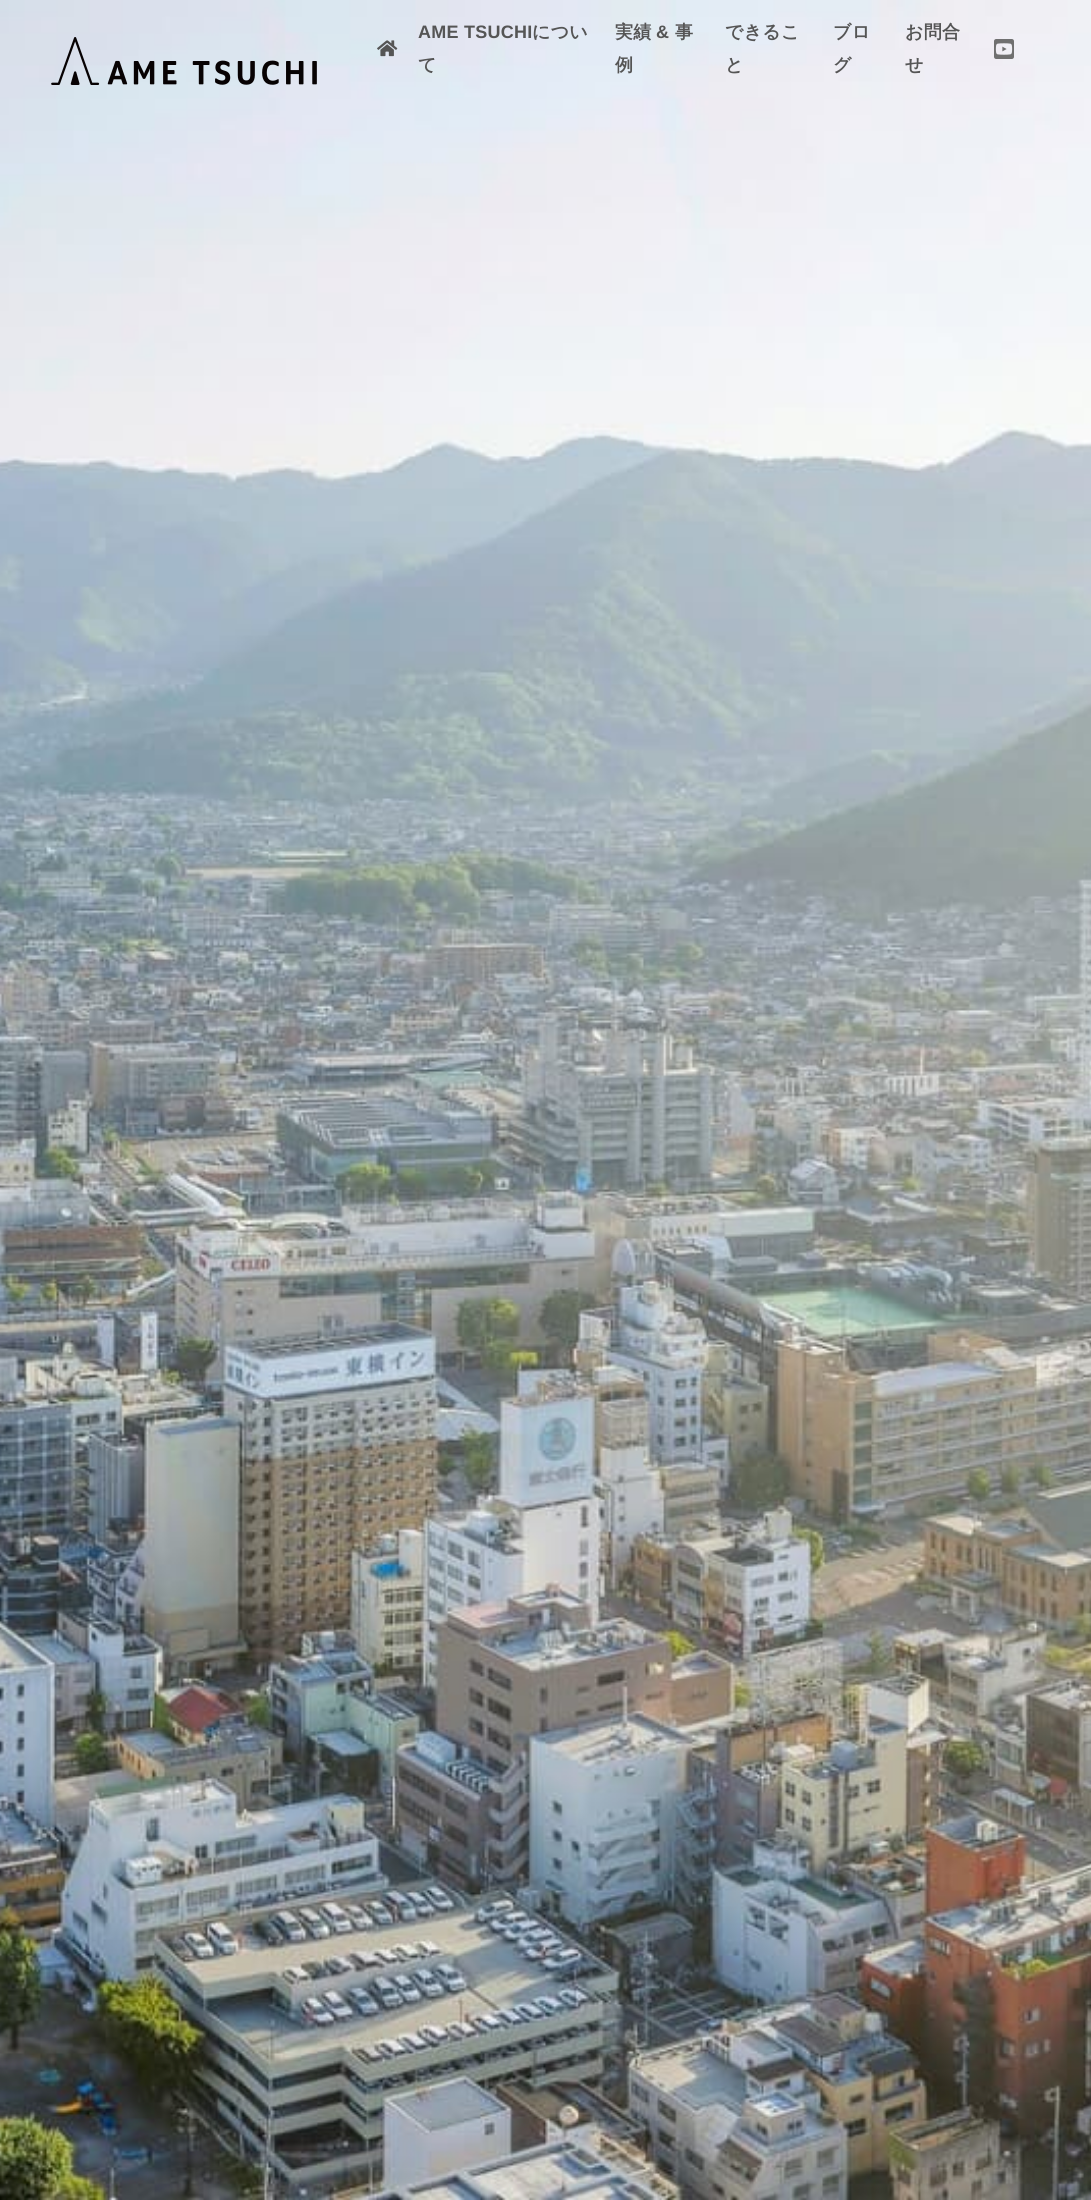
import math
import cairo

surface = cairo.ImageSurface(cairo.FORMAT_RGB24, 1091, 2200)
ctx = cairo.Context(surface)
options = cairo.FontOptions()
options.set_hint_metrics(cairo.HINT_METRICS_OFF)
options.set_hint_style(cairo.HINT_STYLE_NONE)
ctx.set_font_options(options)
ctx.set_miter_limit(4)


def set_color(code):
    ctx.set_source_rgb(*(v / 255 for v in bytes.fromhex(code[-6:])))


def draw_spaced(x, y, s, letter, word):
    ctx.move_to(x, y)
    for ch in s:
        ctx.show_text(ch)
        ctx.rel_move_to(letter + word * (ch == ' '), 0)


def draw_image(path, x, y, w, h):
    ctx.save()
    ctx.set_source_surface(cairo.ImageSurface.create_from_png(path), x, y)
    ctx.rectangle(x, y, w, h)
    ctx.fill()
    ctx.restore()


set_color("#ffffff")
ctx.paint()
draw_image("assets/img1.png", 0, 0, 1091, 2200)
draw_image("assets/img2.png", 51, 37, 266, 48)
draw_image("assets/img3.png", 377, 40, 21, 17)
ctx.select_font_face("Liberation Sans", cairo.FONT_SLANT_NORMAL, cairo.FONT_WEIGHT_BOLD)
ctx.set_font_size(18)
set_color("#555555")
draw_spaced(418, 38, "AME TSUCHI", 0.25, 0)
ctx.select_font_face("WenQuanYi Zen Hei", cairo.FONT_SLANT_NORMAL, cairo.FONT_WEIGHT_BOLD)
draw_spaced(532, 38, "につい", 0.25, 0)
draw_spaced(418, 71, "て", 0.25, 0)
draw_spaced(615, 38, "実績", 0.25, 0)
ctx.select_font_face("Liberation Sans", cairo.FONT_SLANT_NORMAL, cairo.FONT_WEIGHT_BOLD)
draw_spaced(656, 38, "&", 0.25, 0)
ctx.select_font_face("WenQuanYi Zen Hei", cairo.FONT_SLANT_NORMAL, cairo.FONT_WEIGHT_BOLD)
draw_spaced(675, 38, "事", 0.25, 0)
draw_spaced(615, 71, "例", 0.25, 0)
draw_spaced(725, 38, "できるこ", 0.25, 0)
draw_spaced(725, 71, "と", 0.25, 0)
draw_spaced(833, 38, "ブロ", 0.25, 0)
draw_spaced(833, 71, "グ", 0.25, 0)
draw_spaced(905, 38, "お問合", 0.25, 0)
draw_spaced(905, 71, "せ", 0.25, 0)
draw_image("assets/img4.png", 994, 39, 20, 20)
surface.write_to_png("output.png")
